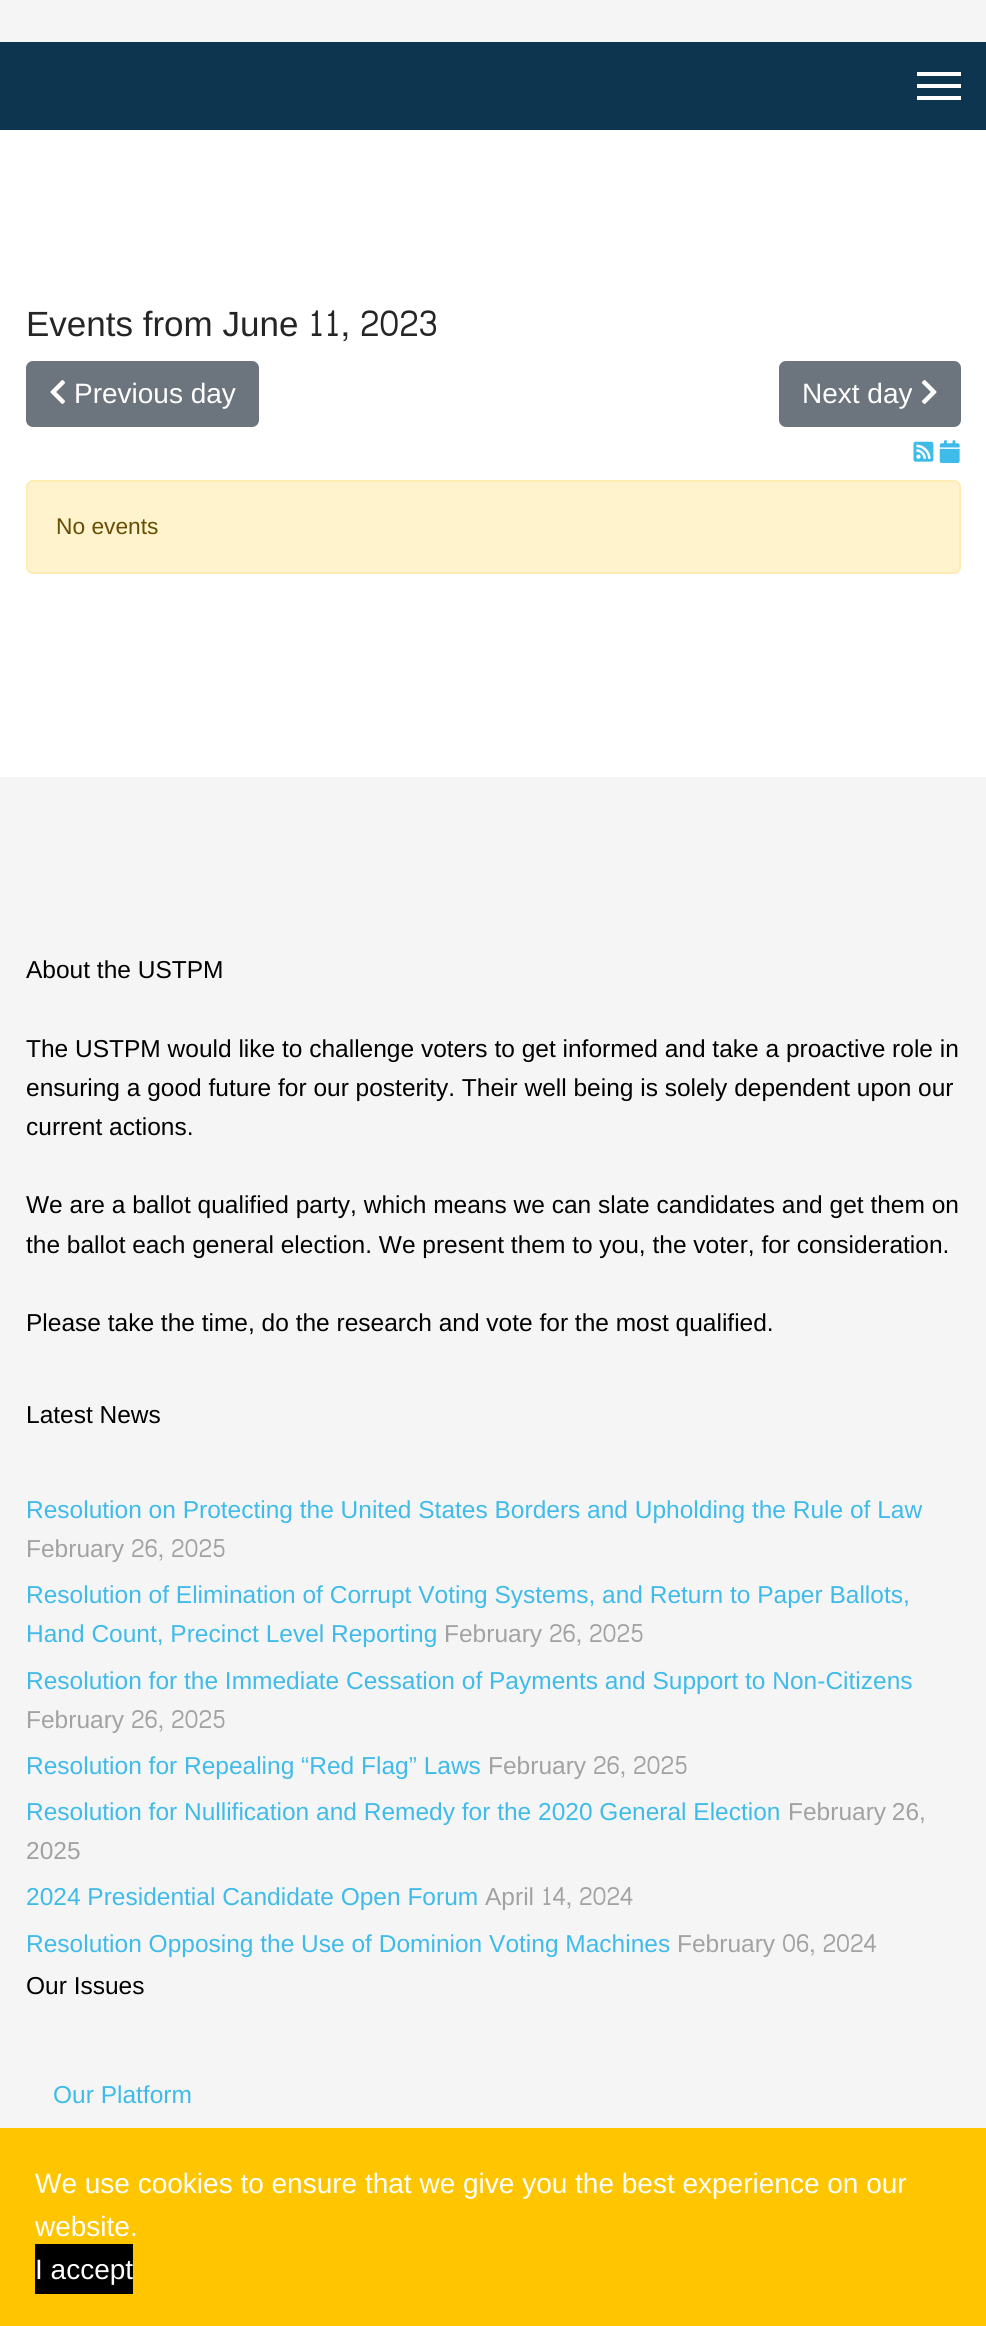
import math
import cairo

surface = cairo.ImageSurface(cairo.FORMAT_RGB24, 986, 2326)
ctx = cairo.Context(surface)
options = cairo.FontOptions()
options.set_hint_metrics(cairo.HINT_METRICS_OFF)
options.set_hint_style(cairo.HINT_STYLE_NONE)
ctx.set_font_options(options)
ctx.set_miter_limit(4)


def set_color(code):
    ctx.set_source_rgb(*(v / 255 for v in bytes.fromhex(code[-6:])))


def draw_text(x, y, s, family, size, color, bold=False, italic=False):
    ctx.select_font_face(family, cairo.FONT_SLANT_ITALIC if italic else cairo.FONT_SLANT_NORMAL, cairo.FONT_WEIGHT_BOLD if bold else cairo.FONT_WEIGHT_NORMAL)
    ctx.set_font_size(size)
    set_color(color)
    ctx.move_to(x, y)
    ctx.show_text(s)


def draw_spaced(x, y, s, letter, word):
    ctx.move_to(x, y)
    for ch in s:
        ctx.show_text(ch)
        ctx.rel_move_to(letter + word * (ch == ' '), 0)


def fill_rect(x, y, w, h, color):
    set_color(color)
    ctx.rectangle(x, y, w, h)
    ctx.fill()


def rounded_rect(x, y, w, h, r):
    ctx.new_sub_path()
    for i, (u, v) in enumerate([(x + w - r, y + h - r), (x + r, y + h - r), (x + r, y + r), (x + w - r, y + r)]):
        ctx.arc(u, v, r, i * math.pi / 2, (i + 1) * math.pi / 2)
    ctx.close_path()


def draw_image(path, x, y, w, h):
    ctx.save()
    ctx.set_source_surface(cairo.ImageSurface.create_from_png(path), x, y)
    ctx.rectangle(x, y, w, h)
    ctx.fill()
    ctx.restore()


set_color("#ffffff")
ctx.paint()
fill_rect(0, 0, 986, 42, "#f5f5f5")
fill_rect(0, 42, 986, 88, "#0d354f")
fill_rect(917, 72, 44, 4, "#ffffff")
fill_rect(917, 84, 44, 4, "#ffffff")
fill_rect(917, 96, 44, 4, "#ffffff")
draw_text(26, 336, "Events from June", "Liberation Sans", 35, "#252525")
draw_text(308, 336, "11, 2023", "Content", 35, "#252525")
set_color("#6c757d")
rounded_rect(27, 362, 231, 64, 6)
ctx.fill_preserve()
ctx.stroke()
draw_image("assets/img1.png", 50, 380, 15, 24)
draw_text(74, 403, "Previous day", "Liberation Sans", 28, "#ffffff")
set_color("#6c757d")
rounded_rect(780, 362, 180, 64, 6)
ctx.fill_preserve()
ctx.stroke()
draw_text(802, 403, "Next day", "Liberation Sans", 28, "#ffffff")
draw_image("assets/img2.png", 922, 380, 15, 24)
draw_image("assets/img3.png", 913, 441, 21, 21)
draw_image("assets/img4.png", 939, 440, 21, 24)
set_color("#fff3cd")
rounded_rect(27, 481, 933, 92, 6)
ctx.fill_preserve()
set_color("#ffecb5")
ctx.stroke()
draw_text(56, 534, "No events", "Liberation Sans", 22.75, "#664d03")
fill_rect(0, 777, 986, 1351, "#f5f5f5")
draw_text(26, 978, "About the USTPM", "Liberation Sans", 24.5, "#000000")
draw_text(26, 1057, "The USTPM would like to challenge voters to get informed and take a proactive role in", "Liberation Sans", 24.5, "#000000")
draw_text(26, 1096, "ensuring a good future for our posterity. Their well being is solely dependent upon our", "Liberation Sans", 24.5, "#000000")
draw_text(26, 1135, "current actions.", "Liberation Sans", 24.5, "#000000")
draw_text(26, 1213, "We are a ballot qualified party, which means we can slate candidates and get them on", "Liberation Sans", 24.5, "#000000")
draw_text(26, 1253, "the ballot each general election. We present them to you, the voter, for consideration.", "Liberation Sans", 24.5, "#000000")
draw_text(26, 1331, "Please take the time, do the research and vote for the most qualified.", "Liberation Sans", 24.5, "#000000")
draw_text(26, 1423, "Latest News", "Liberation Sans", 24.5, "#000000")
draw_text(26, 1518, "Resolution on Protecting the United States Borders and Upholding the Rule of Law", "Liberation Sans", 24.5, "#3fbbe9")
draw_text(26, 1557, "February", "Liberation Sans", 24.5, "#a2a2a2")
draw_text(131, 1557, "26, 2025", "Content", 24.5, "#a2a2a2")
draw_text(26, 1603, "Resolution of Elimination of Corrupt Voting Systems, and Return to Paper Ballots,", "Liberation Sans", 24.5, "#3fbbe9")
draw_text(26, 1642, "Hand Count, Precinct Level Reporting", "Liberation Sans", 24.5, "#3fbbe9")
draw_text(444, 1642, "February", "Liberation Sans", 24.5, "#a2a2a2")
draw_text(549, 1642, "26, 2025", "Content", 24.5, "#a2a2a2")
draw_text(26, 1689, "Resolution for the Immediate Cessation of Payments and Support to Non-Citizens", "Liberation Sans", 24.5, "#3fbbe9")
draw_text(26, 1728, "February", "Liberation Sans", 24.5, "#a2a2a2")
draw_text(131, 1728, "26, 2025", "Content", 24.5, "#a2a2a2")
draw_text(26, 1774, "Resolution for Repealing “Red Flag” Laws", "Liberation Sans", 24.5, "#3fbbe9")
draw_text(488, 1774, "February", "Liberation Sans", 24.5, "#a2a2a2")
draw_text(593, 1774, "26, 2025", "Content", 24.5, "#a2a2a2")
draw_text(26, 1820, "Resolution for Nullification and Remedy for the 2020 General Election", "Liberation Sans", 24.5, "#3fbbe9")
set_color("#a2a2a2")
draw_spaced(788, 1820, "February 26,", 0, -1)
draw_text(26, 1859, "2025", "Liberation Sans", 24.5, "#a2a2a2")
draw_text(26, 1905, "2024 Presidential Candidate Open Forum", "Liberation Sans", 24.5, "#3fbbe9")
draw_text(485, 1905, "April", "Liberation Sans", 24.5, "#a2a2a2")
draw_text(541, 1905, "14, 2024", "Content", 24.5, "#a2a2a2")
draw_text(26, 1952, "Resolution Opposing the Use of Dominion Voting Machines", "Liberation Sans", 24.5, "#3fbbe9")
draw_text(677, 1952, "February", "Liberation Sans", 24.5, "#a2a2a2")
draw_text(782, 1952, "06, 2024", "Content", 24.5, "#a2a2a2")
draw_text(26, 1994, "Our Issues", "Liberation Sans", 24.5, "#000000")
draw_text(53, 2103, "Our Platform", "Liberation Sans", 24.5, "#3fbbe9")
fill_rect(0, 2128, 986, 198, "#ffc600")
draw_text(35, 2193, "We use cookies to ensure that we give you the best experience on our", "Liberation Sans", 28, "#ffffff")
draw_text(35, 2236, "website.", "Liberation Sans", 28, "#ffffff")
fill_rect(35, 2244, 98, 50, "#000000")
draw_text(35, 2279, "I accept", "Liberation Sans", 28, "#ffffff")
surface.write_to_png("output.png")
